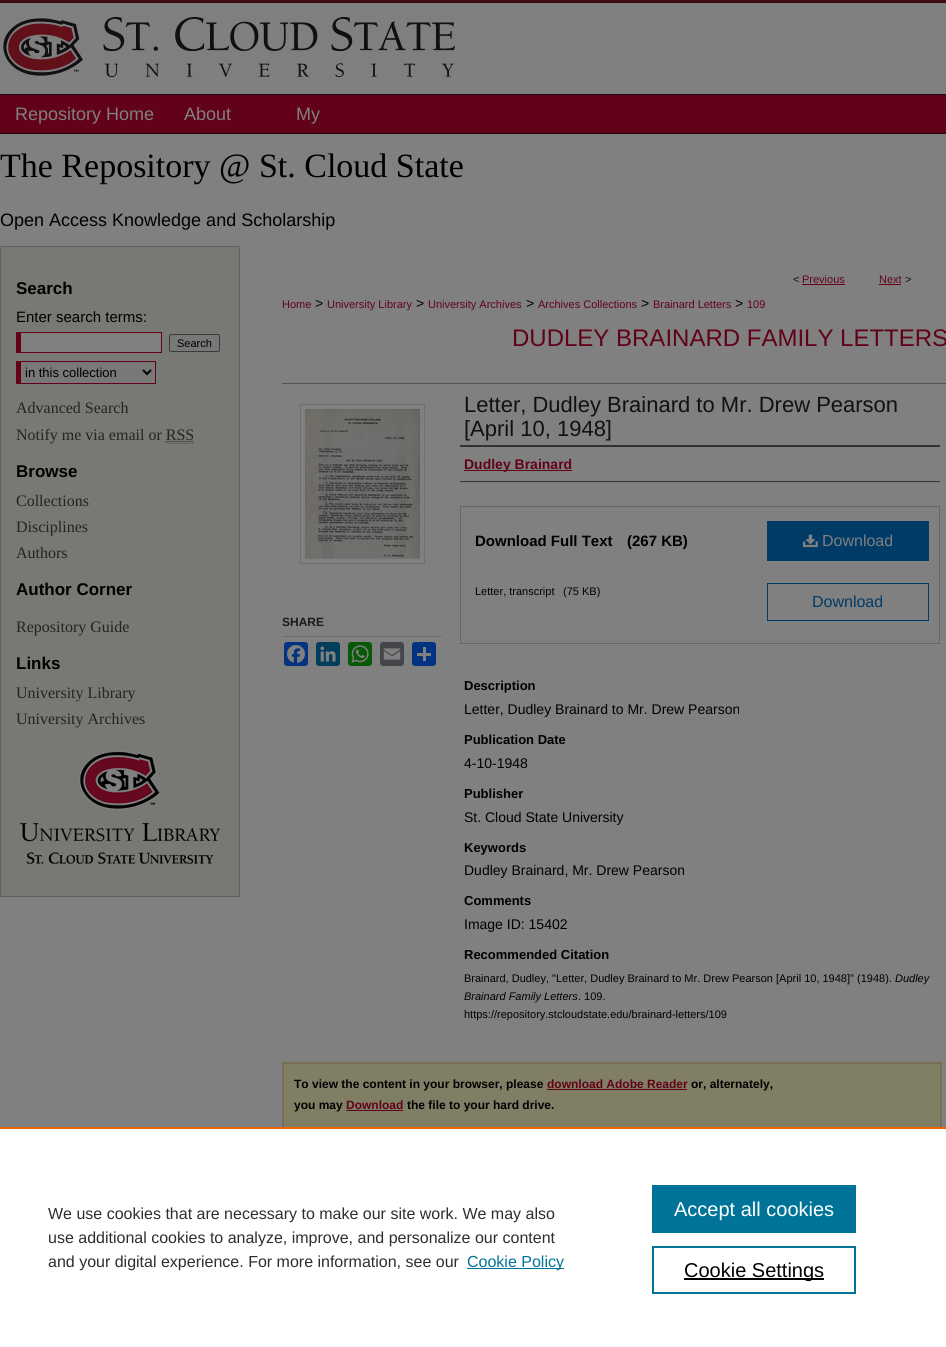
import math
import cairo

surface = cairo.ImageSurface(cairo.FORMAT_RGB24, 946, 1347)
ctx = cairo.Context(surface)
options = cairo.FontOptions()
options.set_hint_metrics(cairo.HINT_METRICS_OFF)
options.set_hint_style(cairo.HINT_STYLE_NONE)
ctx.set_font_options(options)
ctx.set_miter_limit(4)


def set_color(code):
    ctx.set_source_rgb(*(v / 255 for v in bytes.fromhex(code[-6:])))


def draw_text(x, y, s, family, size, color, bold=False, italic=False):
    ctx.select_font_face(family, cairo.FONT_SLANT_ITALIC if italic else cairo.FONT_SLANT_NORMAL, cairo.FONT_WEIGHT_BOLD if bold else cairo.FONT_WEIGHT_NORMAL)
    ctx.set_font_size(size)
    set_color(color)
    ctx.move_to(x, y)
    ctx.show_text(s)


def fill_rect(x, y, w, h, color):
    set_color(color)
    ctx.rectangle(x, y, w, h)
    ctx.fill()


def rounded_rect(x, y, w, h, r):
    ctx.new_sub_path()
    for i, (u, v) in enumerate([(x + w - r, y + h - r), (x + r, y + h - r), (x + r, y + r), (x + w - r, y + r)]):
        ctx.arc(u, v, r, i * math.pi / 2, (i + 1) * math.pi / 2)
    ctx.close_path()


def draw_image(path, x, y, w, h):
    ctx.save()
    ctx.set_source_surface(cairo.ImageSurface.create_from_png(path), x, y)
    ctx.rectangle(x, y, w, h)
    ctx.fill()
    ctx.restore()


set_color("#808080")
ctx.paint()
draw_image("assets/img1.png", 0, 0, 946, 95)
fill_rect(0, 95, 946, 38, "#610218")
fill_rect(0, 133, 946, 1, "#130f0d")
draw_text(15, 120, "Repository Home", "Liberation Sans", 18, "#808080")
draw_text(184, 120, "About", "Liberation Sans", 18, "#808080")
draw_text(296, 120, "My", "Liberation Sans", 18, "#808080")
draw_text(0, 177, "The Repository @ St. Cloud State", "Liberation Serif", 34, "#000000")
draw_text(0, 226, "Open Access Knowledge and Scholarship", "Liberation Sans", 18, "#000000")
set_color("#787875")
ctx.rectangle(0.5, 246.5, 239, 650)
ctx.fill_preserve()
set_color("#61615c")
ctx.set_line_width(1)
ctx.stroke()
draw_text(16, 294, "Search", "Liberation Sans", 17, "#000000", bold=True)
draw_text(16, 322, "Enter search terms:", "Liberation Sans", 15, "#000000")
fill_rect(21, 333, 140, 19, "#808080")
fill_rect(16, 332, 146, 1, "#610218")
fill_rect(161, 332, 1, 21, "#610218")
fill_rect(16, 352, 146, 1, "#610218")
fill_rect(16, 332, 5, 21, "#610218")
set_color("#787878")
rounded_rect(169.5, 334.5, 50, 17, 1.5)
ctx.fill_preserve()
set_color("#3b3b3b")
ctx.stroke()
draw_text(177, 347, "Search", "Liberation Sans", 11, "#000000")
fill_rect(21, 362, 134, 21, "#787878")
fill_rect(16, 361, 140, 1, "#610218")
fill_rect(155, 361, 1, 23, "#610218")
fill_rect(16, 383, 140, 1, "#610218")
fill_rect(16, 361, 5, 23, "#610218")
ctx.new_path()
ctx.move_to(143, 370)
ctx.line_to(147, 374)
ctx.line_to(151, 370)
set_color("#000000")
ctx.set_line_width(2)
ctx.stroke()
draw_text(25, 377, "in this collection", "Liberation Sans", 13, "#000000")
draw_text(16, 413, "Advanced Search", "Liberation Serif", 16, "#232323")
draw_text(16, 440, "Notify me via email or RSS", "Liberation Serif", 16, "#232323")
ctx.new_path()
ctx.move_to(165.5, 441.5)
ctx.line_to(194, 441.5)
ctx.set_line_width(1)
ctx.set_dash([1, 1])
ctx.stroke()
ctx.new_path()
ctx.move_to(166, 443.5)
ctx.line_to(194, 443.5)
set_color("#4d4d4d")
ctx.stroke()
draw_text(16, 477, "Browse", "Liberation Sans", 17, "#000000", bold=True)
draw_text(16, 506, "Collections", "Liberation Serif", 16, "#232323")
draw_text(16, 532, "Disciplines", "Liberation Serif", 16, "#232323")
draw_text(16, 558, "Authors", "Liberation Serif", 16, "#232323")
draw_text(16, 595, "Author Corner", "Liberation Sans", 17, "#000000", bold=True)
draw_text(16, 632, "Repository Guide", "Liberation Serif", 16, "#232323")
draw_text(16, 669, "Links", "Liberation Sans", 17, "#000000", bold=True)
draw_text(16, 698, "University Library", "Liberation Serif", 16, "#232323")
draw_text(16, 724, "University Archives", "Liberation Serif", 16, "#232323")
draw_image("assets/img2.png", 20, 751, 200, 113)
draw_text(793, 283, "<", "Liberation Sans", 11, "#111111")
draw_text(802, 283, "Previous", "Liberation Sans", 11, "#610218")
fill_rect(802, 284, 43, 1, "#610218")
draw_text(879, 283, "Next", "Liberation Sans", 11, "#610218")
fill_rect(879, 284, 22, 1, "#610218")
draw_text(905, 283, ">", "Liberation Sans", 11, "#111111")
draw_text(282, 308, "Home", "Liberation Sans", 11, "#610218")
draw_text(315, 308, ">", "Liberation Sans", 14, "#000000")
draw_text(327, 308, "University Library", "Liberation Sans", 11, "#610218")
draw_text(416, 308, ">", "Liberation Sans", 14, "#000000")
draw_text(428, 308, "University Archives", "Liberation Sans", 11, "#610218")
draw_text(526, 308, ">", "Liberation Sans", 14, "#000000")
draw_text(538, 308, "Archives Collections", "Liberation Sans", 11, "#610218")
draw_text(641, 308, ">", "Liberation Sans", 14, "#000000")
draw_text(653, 308, "Brainard Letters", "Liberation Sans", 11, "#610218")
draw_text(735, 308, ">", "Liberation Sans", 14, "#000000")
draw_text(747, 308, "109", "Liberation Sans", 11, "#610218")
draw_text(512, 346, "DUDLEY BRAINARD FAMILY LETTERS", "Liberation Sans", 24, "#610218")
ctx.rectangle(300.5, 404.5, 124, 159)
set_color("#6f6f6f")
ctx.set_dash([])
ctx.stroke()
draw_image("assets/img3.png", 305, 409, 115, 150)
fill_rect(282, 636, 160, 1, "#6f6f6f")
draw_text(282, 626, "SHARE", "Liberation Sans", 12, "#1a1a1a", bold=True)
set_color("#043380")
rounded_rect(284, 642, 24, 24, 3)
ctx.fill()
draw_image("assets/img4.png", 287, 645, 18, 18)
set_color("#003e5b")
rounded_rect(316, 642, 24, 24, 3)
ctx.fill()
draw_image("assets/img5.png", 320, 646, 16, 16)
set_color("#095805")
rounded_rect(348, 642, 24, 24, 3)
ctx.fill()
draw_image("assets/img6.png", 351, 645, 18, 18)
set_color("#444548")
rounded_rect(380, 642, 24, 24, 3)
ctx.fill()
draw_image("assets/img7.png", 383, 648, 18, 12)
set_color("#013380")
rounded_rect(412, 642, 24, 24, 3)
ctx.fill()
fill_rect(423, 647, 3, 14, "#808080")
fill_rect(417, 653, 14, 3, "#808080")
fill_rect(282, 383, 664, 1, "#555555")
draw_text(464, 412, "Letter, Dudley Brainard to Mr. Drew Pearson", "Liberation Sans", 22, "#111111")
draw_text(464, 436, "[April 10, 1948]", "Liberation Sans", 22, "#111111")
fill_rect(460, 445, 480, 2, "#333333")
fill_rect(460, 481, 480, 1, "#333333")
fill_rect(464, 470, 108, 1, "#610218")
draw_text(464, 469, "Dudley Brainard", "Liberation Sans", 14, "#610218", bold=True)
ctx.rectangle(460.5, 506.5, 479, 137)
set_color("#666666")
ctx.stroke()
draw_text(475, 546, "Download Full Text", "Liberation Sans", 15, "#000000", bold=True)
draw_text(627, 546, "(267 KB)", "Liberation Sans", 15, "#000000", bold=True)
fill_rect(767, 521, 162, 40, "#003a66")
draw_image("assets/img8.png", 803, 534, 15, 14)
draw_text(822, 546, "Download", "Liberation Sans", 16, "#808080")
draw_text(475, 595, "Letter, transcript", "Liberation Sans", 11, "#000000")
draw_text(563, 595, "(75 KB)", "Liberation Sans", 11, "#000000")
ctx.rectangle(767.5, 583.5, 161, 37)
set_color("#003a66")
ctx.stroke()
draw_text(812, 607, "Download", "Liberation Sans", 16, "#003a66")
draw_text(464, 690, "Description", "Liberation Sans", 13, "#000000", bold=True)
draw_text(464, 714, "Letter, Dudley Brainard to Mr. Drew Pearson", "Liberation Sans", 14, "#000000")
draw_text(464, 744, "Publication Date", "Liberation Sans", 13, "#000000", bold=True)
draw_text(464, 768, "4-10-1948", "Liberation Sans", 14, "#000000")
draw_text(464, 798, "Publisher", "Liberation Sans", 13, "#000000", bold=True)
draw_text(464, 822, "St. Cloud State University", "Liberation Sans", 14, "#000000")
draw_text(464, 852, "Keywords", "Liberation Sans", 13, "#000000", bold=True)
draw_text(464, 875, "Dudley Brainard, Mr. Drew Pearson", "Liberation Sans", 14, "#000000")
draw_text(464, 905, "Comments", "Liberation Sans", 13, "#000000", bold=True)
draw_text(464, 929, "Image ID: 15402", "Liberation Sans", 14, "#000000")
draw_text(464, 959, "Recommended Citation", "Liberation Sans", 13, "#000000", bold=True)
draw_text(464, 982, "Brainard, Dudley, \"Letter, Dudley Brainard to Mr. Drew Pearson [April 10, 1948]\" (1948).", "Liberation Sans", 11, "#000000")
draw_text(895, 982, "Dudley", "Liberation Sans", 11, "#000000", italic=True)
draw_text(464, 1000, "Brainard Family Letters", "Liberation Sans", 11, "#000000", italic=True)
draw_text(578, 1000, ". 109.", "Liberation Sans", 11, "#000000")
draw_text(464, 1018, "https://repository.stcloudstate.edu/brainard-letters/109", "Liberation Sans", 11, "#000000")
fill_rect(284, 1064, 656, 63, "#807e65")
ctx.rectangle(283, 1063, 658, 140)
set_color("#786e51")
ctx.set_line_width(2)
ctx.stroke()
draw_text(294, 1088, "To view the content in your browser, please", "Liberation Sans", 12, "#000000", bold=True)
draw_text(547, 1088, "download Adobe Reader", "Liberation Sans", 12, "#610218", bold=True)
fill_rect(547, 1089, 140, 1, "#610218")
draw_text(691, 1088, "or, alternately,", "Liberation Sans", 12, "#000000", bold=True)
draw_text(294, 1109, "you may", "Liberation Sans", 12, "#000000", bold=True)
draw_text(346, 1109, "Download", "Liberation Sans", 12, "#610218", bold=True)
fill_rect(346, 1110, 57, 1, "#610218")
draw_text(407, 1109, "the file to your hard drive.", "Liberation Sans", 12, "#000000", bold=True)
fill_rect(0, 1129, 946, 218, "#ffffff")
fill_rect(0, 1127, 946, 2, "#eb6500")
draw_text(48, 1219, "We use cookies that are necessary to make our site work. We may also", "Liberation Sans", 16, "#2e2e2e")
draw_text(48, 1243, "use additional cookies to analyze, improve, and personalize our content", "Liberation Sans", 16, "#2e2e2e")
draw_text(48, 1267, "and your digital experience. For more information, see our", "Liberation Sans", 16, "#2e2e2e")
fill_rect(467, 1268, 97, 1, "#007398")
draw_text(467, 1267, "Cookie Policy", "Liberation Sans", 16, "#007398")
fill_rect(652, 1185, 204, 48, "#007398")
draw_text(674, 1216, "Accept all cookies", "Liberation Sans", 20, "#ffffff")
ctx.rectangle(653, 1247, 202, 46)
set_color("#007398")
ctx.stroke()
fill_rect(684, 1278, 140, 2, "#000000")
draw_text(684, 1277, "Cookie Settings", "Liberation Sans", 20, "#000000")
surface.write_to_png("output.png")
